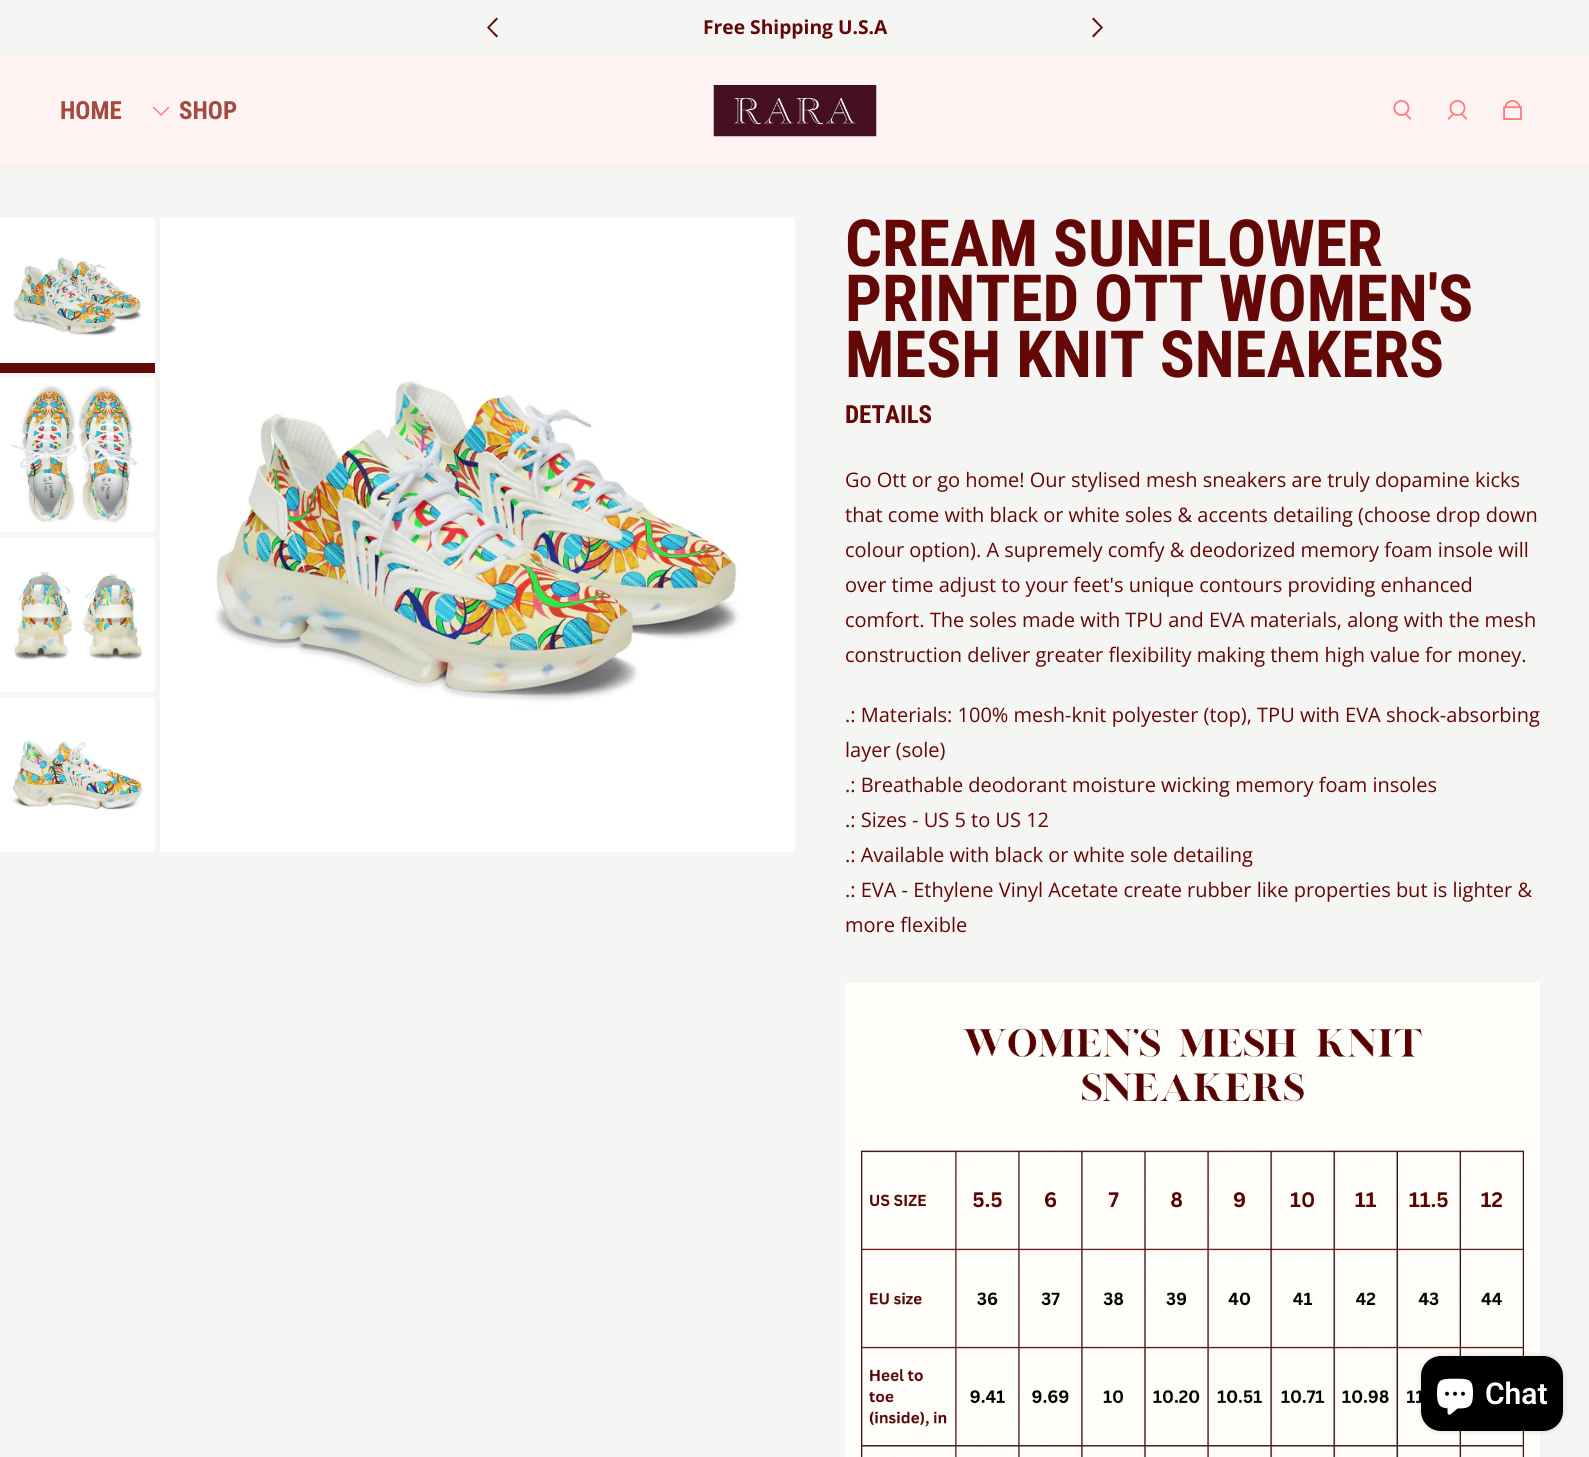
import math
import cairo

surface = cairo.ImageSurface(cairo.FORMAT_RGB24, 1589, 1457)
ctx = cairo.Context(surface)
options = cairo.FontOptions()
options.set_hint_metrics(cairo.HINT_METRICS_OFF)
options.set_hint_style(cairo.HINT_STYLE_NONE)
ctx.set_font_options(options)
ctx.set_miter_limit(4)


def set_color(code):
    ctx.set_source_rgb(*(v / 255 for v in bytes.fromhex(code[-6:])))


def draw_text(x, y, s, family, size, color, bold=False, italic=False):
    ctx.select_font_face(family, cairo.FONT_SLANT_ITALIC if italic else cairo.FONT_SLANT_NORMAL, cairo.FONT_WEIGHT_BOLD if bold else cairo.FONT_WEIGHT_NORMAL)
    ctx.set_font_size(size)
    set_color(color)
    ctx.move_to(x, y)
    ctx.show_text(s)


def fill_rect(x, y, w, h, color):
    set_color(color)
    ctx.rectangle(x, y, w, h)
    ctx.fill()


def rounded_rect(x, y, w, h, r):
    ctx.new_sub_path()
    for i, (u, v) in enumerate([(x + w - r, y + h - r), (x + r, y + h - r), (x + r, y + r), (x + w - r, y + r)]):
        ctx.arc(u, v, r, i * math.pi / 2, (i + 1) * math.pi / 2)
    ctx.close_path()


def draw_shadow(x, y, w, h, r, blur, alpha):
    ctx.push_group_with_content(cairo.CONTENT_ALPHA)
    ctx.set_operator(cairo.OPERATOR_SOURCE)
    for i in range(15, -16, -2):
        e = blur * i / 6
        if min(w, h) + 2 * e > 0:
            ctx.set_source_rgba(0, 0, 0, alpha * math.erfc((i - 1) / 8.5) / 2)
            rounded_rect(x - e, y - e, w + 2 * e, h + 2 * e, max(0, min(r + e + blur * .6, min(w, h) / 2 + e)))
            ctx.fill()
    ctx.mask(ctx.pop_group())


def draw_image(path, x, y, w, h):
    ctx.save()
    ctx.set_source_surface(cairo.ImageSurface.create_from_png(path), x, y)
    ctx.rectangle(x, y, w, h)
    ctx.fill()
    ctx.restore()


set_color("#f5f5f3")
ctx.paint()
set_color("#640707")
ctx.set_fill_rule(cairo.FILL_RULE_EVEN_ODD)
ctx.new_path()
ctx.move_to(489.5, 27.5)
ctx.line_to(498, 19)
ctx.line_to(496.5, 17.5)
ctx.line_to(487, 27.5)
ctx.line_to(496.5, 37.5)
ctx.line_to(498, 36)
ctx.close_path()
ctx.fill()
draw_text(703, 34, "Free Shipping U.S.A", "Open Sans", 19.25, "#640707", bold=True)
ctx.new_path()
ctx.move_to(1100.5, 27.5)
ctx.line_to(1092, 36)
ctx.line_to(1093.5, 37.5)
ctx.line_to(1103, 27.5)
ctx.line_to(1093.5, 17.5)
ctx.line_to(1092, 19)
ctx.close_path()
ctx.fill()
fill_rect(0, 55, 1589, 113, "#fdf3f3")
fill_rect(0, 166, 1589, 1, "#fde7e7")
draw_text(60, 119, "HOME", "Roboto Condensed", 25, "#a34b3e", bold=True)
set_color("#ff7d7d")
ctx.new_path()
ctx.move_to(161, 114)
ctx.line_to(153.5, 106.5)
ctx.line_to(152.5, 107.5)
ctx.line_to(161, 116)
ctx.line_to(169.5, 107.5)
ctx.line_to(168.5, 106.5)
ctx.close_path()
ctx.fill()
draw_text(179, 119, "SHOP", "Roboto Condensed", 25, "#a34b3e", bold=True)
draw_image("assets/img1.png", 713, 85, 164, 52)
draw_image("assets/img2.png", 1393, 100, 19, 20)
draw_image("assets/img3.png", 1448, 100, 20, 20)
draw_image("assets/img4.png", 1503, 100, 19, 20)
draw_image("assets/img5.png", 0, 218, 155, 145)
fill_rect(0, 363, 155, 10, "#640707")
draw_image("assets/img6.png", 0, 377, 155, 156)
draw_image("assets/img7.png", 0, 537, 155, 156)
draw_image("assets/img8.png", 0, 697, 155, 155)
draw_image("assets/img9.png", 160, 217, 635, 636)
draw_text(845, 266, "CREAM SUNFLOWER", "Roboto Condensed", 65, "#640707", bold=True)
draw_text(845, 321, "PRINTED OTT WOMEN'S", "Roboto Condensed", 65, "#640707", bold=True)
draw_text(845, 377, "MESH KNIT SNEAKERS", "Roboto Condensed", 65, "#640707", bold=True)
draw_text(845, 423, "DETAILS", "Roboto Condensed", 25, "#640707", bold=True)
draw_text(845, 487, "Go Ott or go home! Our stylised mesh sneakers are truly dopamine kicks", "Open Sans", 20, "#640707")
draw_text(845, 522, "that come with black or white soles & accents detailing (choose drop down", "Open Sans", 20, "#640707")
draw_text(845, 557, "colour option). A supremely comfy & deodorized memory foam insole will", "Open Sans", 20, "#640707")
draw_text(845, 592, "over time adjust to your feet's unique contours providing enhanced", "Open Sans", 20, "#640707")
draw_text(845, 627, "comfort. The soles made with TPU and EVA materials, along with the mesh", "Open Sans", 20, "#640707")
draw_text(845, 662, "construction deliver greater flexibility making them high value for money.", "Open Sans", 20, "#640707")
draw_text(845, 722, ".: Materials: 100% mesh-knit polyester (top), TPU with EVA shock-absorbing", "Open Sans", 20, "#640707")
draw_text(845, 757, "layer (sole)", "Open Sans", 20, "#640707")
draw_text(845, 792, ".: Breathable deodorant moisture wicking memory foam insoles", "Open Sans", 20, "#640707")
draw_text(845, 827, ".: Sizes - US 5 to US 12", "Open Sans", 20, "#640707")
draw_text(845, 862, ".: Available with black or white sole detailing", "Open Sans", 20, "#640707")
draw_text(845, 897, ".: EVA - Ethylene Vinyl Acetate create rubber like properties but is lighter &", "Open Sans", 20, "#640707")
draw_text(845, 932, "more flexible", "Open Sans", 20, "#640707")
draw_image("assets/img10.png", 845, 982, 695, 475)
set_color("#000000")
draw_shadow(1421, 1356, 142, 75, 20, 3, 0.15)
set_color("#000000")
rounded_rect(1421, 1356, 142, 75, 20)
ctx.fill()
draw_image("assets/img11.png", 1437, 1378, 36, 37)
draw_text(1485, 1404, "Chat", "Roboto SemiBold", 30, "#ffffff")
surface.write_to_png("output.png")
